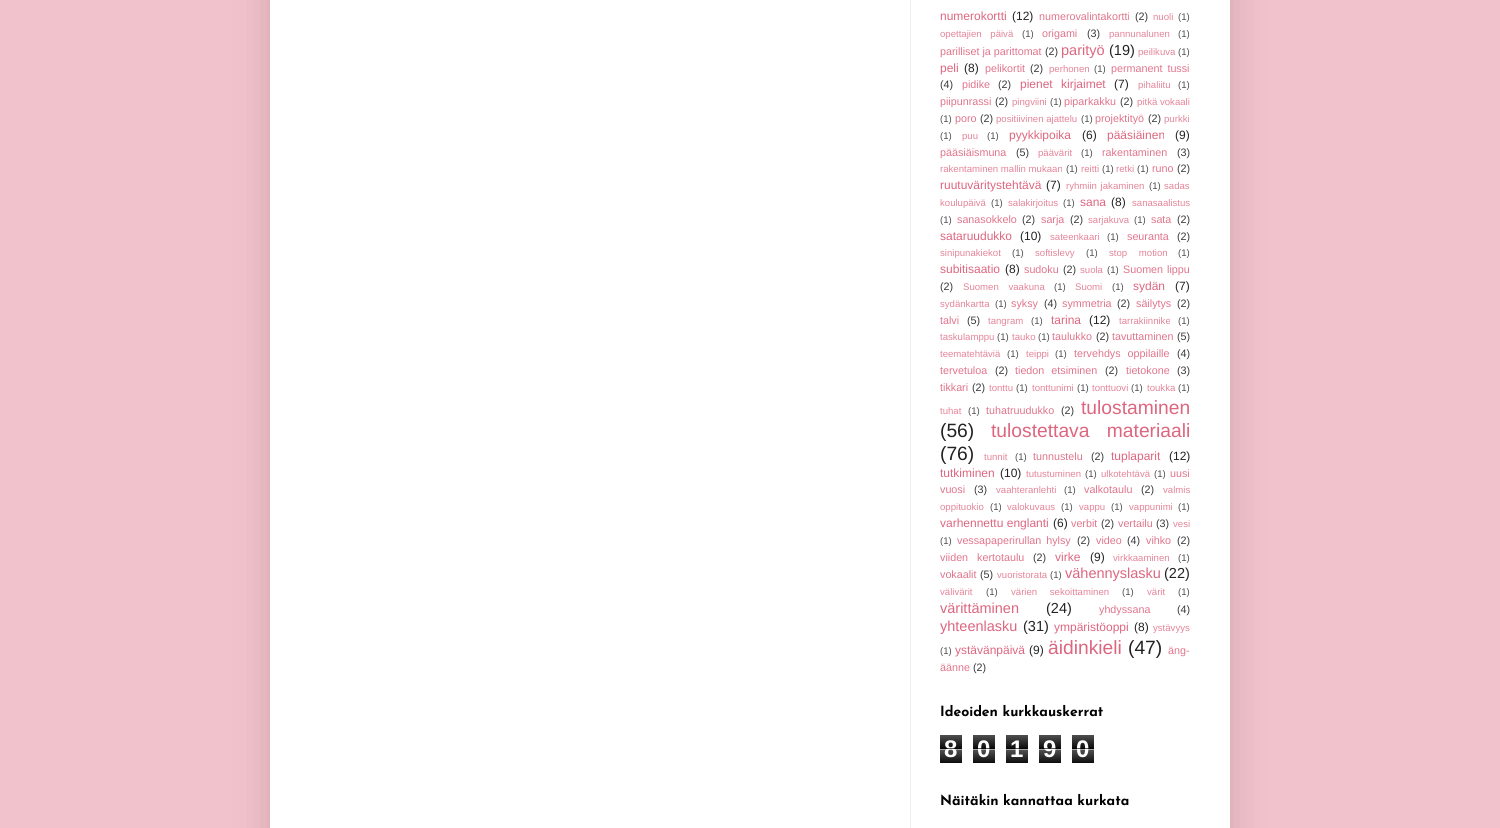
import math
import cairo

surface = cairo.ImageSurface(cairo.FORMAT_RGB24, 1500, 828)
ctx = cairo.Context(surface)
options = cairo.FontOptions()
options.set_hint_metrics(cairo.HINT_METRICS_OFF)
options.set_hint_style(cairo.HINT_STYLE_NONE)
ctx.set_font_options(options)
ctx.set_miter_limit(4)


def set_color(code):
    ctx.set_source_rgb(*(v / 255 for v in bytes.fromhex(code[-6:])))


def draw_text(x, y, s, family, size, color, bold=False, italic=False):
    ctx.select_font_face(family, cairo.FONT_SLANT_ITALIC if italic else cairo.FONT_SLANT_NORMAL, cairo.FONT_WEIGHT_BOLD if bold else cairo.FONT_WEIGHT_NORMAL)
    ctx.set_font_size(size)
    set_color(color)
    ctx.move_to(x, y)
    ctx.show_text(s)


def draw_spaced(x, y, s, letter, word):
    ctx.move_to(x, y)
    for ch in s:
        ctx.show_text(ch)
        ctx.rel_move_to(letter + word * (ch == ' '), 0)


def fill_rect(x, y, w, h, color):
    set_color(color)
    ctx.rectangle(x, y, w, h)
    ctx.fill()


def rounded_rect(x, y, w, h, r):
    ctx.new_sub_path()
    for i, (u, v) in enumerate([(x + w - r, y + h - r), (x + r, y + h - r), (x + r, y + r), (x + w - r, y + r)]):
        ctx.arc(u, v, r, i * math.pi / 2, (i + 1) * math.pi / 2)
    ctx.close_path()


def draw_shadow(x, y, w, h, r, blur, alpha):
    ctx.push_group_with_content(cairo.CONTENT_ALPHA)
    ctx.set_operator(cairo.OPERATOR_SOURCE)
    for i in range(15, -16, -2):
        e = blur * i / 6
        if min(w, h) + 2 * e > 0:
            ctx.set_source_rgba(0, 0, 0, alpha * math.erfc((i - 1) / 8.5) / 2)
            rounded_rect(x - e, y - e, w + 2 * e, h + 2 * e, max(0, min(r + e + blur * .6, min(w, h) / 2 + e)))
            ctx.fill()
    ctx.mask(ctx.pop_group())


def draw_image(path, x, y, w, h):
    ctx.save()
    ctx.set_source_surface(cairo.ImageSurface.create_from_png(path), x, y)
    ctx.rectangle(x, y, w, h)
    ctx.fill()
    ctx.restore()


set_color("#f2c2cc")
ctx.paint()
set_color("#000000")
draw_shadow(270, -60, 960, 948, 0, 20, 0.15)
fill_rect(270, 0, 960, 828, "#ffffff")
fill_rect(910, 0, 1, 828, "#eeeeee")
draw_text(940, 20, "numerokortti", "Liberation Sans", 12, "#dd667f")
draw_text(1012, 20, "(12)", "Liberation Sans", 12, "#222222")
draw_text(1039, 20, "numerovalintakortti", "Liberation Sans", 10.75, "#e0758c")
draw_text(1135, 20, "(2)", "Liberation Sans", 10.75, "#383838")
draw_text(1153, 20, "nuoli", "Liberation Sans", 9.6, "#e48599")
draw_text(1178, 20, "(1)", "Liberation Sans", 9.6, "#4e4e4e")
set_color("#e48599")
draw_spaced(940, 37, "opettajien päivä", 0, 6)
draw_text(1022, 37, "(1)", "Liberation Sans", 9.6, "#4e4e4e")
draw_text(1042, 37, "origami", "Liberation Sans", 10.75, "#e0758c")
draw_text(1087, 37, "(3)", "Liberation Sans", 10.75, "#383838")
draw_text(1109, 37, "pannunalunen", "Liberation Sans", 9.6, "#e48599")
draw_text(1178, 37, "(1)", "Liberation Sans", 9.6, "#4e4e4e")
draw_text(940, 55, "parilliset ja parittomat", "Liberation Sans", 10.75, "#e0758c")
draw_text(1045, 55, "(2)", "Liberation Sans", 10.75, "#383838")
draw_text(1061, 55, "parityö", "Liberation Sans", 14.5, "#dd667f")
draw_text(1109, 55, "(19)", "Liberation Sans", 14.5, "#222222")
draw_text(1138, 55, "peilikuva", "Liberation Sans", 9.6, "#e48599")
draw_text(1178, 55, "(1)", "Liberation Sans", 9.6, "#4e4e4e")
draw_text(940, 72, "peli", "Liberation Sans", 12, "#dd667f")
draw_text(964, 72, "(8)", "Liberation Sans", 12, "#222222")
draw_text(985, 72, "pelikortit", "Liberation Sans", 10.75, "#e0758c")
draw_text(1030, 72, "(2)", "Liberation Sans", 10.75, "#383838")
draw_text(1049, 72, "perhonen", "Liberation Sans", 9.6, "#e48599")
draw_text(1094, 72, "(1)", "Liberation Sans", 9.6, "#4e4e4e")
ctx.set_font_size(10.75)
set_color("#e0758c")
draw_spaced(1111, 72, "permanent tussi", 0, 2)
draw_text(940, 88, "(4)", "Liberation Sans", 10.75, "#383838")
draw_text(962, 88, "pidike", "Liberation Sans", 10.75, "#e0758c")
draw_text(998, 88, "(2)", "Liberation Sans", 10.75, "#383838")
ctx.set_font_size(12)
set_color("#dd667f")
draw_spaced(1020, 88, "pienet kirjaimet", 0, 5)
draw_text(1114, 88, "(7)", "Liberation Sans", 12, "#222222")
draw_text(1138, 88, "pihaliitu", "Liberation Sans", 9.6, "#e48599")
draw_text(1178, 88, "(1)", "Liberation Sans", 9.6, "#4e4e4e")
draw_text(940, 105, "piipunrassi", "Liberation Sans", 10.75, "#e0758c")
draw_text(995, 105, "(2)", "Liberation Sans", 10.75, "#383838")
draw_text(1012, 105, "pingviini", "Liberation Sans", 9.6, "#e48599")
draw_text(1050, 105, "(1)", "Liberation Sans", 9.6, "#4e4e4e")
draw_text(1064, 105, "piparkakku", "Liberation Sans", 10.75, "#e0758c")
draw_text(1120, 105, "(2)", "Liberation Sans", 10.75, "#383838")
draw_text(1137, 105, "pitkä vokaali", "Liberation Sans", 9.6, "#e48599")
draw_text(940, 122, "(1)", "Liberation Sans", 9.6, "#4e4e4e")
draw_text(955, 122, "poro", "Liberation Sans", 10.75, "#e0758c")
draw_text(980, 122, "(2)", "Liberation Sans", 10.75, "#383838")
draw_text(996, 122, "positiivinen ajattelu", "Liberation Sans", 9.6, "#e48599")
draw_text(1081, 122, "(1)", "Liberation Sans", 9.6, "#4e4e4e")
draw_text(1095, 122, "projektityö", "Liberation Sans", 10.75, "#e0758c")
draw_text(1148, 122, "(2)", "Liberation Sans", 10.75, "#383838")
draw_text(1164, 122, "purkki", "Liberation Sans", 9.6, "#e48599")
draw_text(940, 139, "(1)", "Liberation Sans", 9.6, "#4e4e4e")
draw_text(962, 139, "puu", "Liberation Sans", 9.6, "#e48599")
draw_text(987, 139, "(1)", "Liberation Sans", 9.6, "#4e4e4e")
draw_text(1009, 139, "pyykkipoika", "Liberation Sans", 12, "#dd667f")
draw_text(1082, 139, "(6)", "Liberation Sans", 12, "#222222")
draw_text(1107, 139, "pääsiäinen", "Liberation Sans", 12, "#dd667f")
draw_text(1175, 139, "(9)", "Liberation Sans", 12, "#222222")
draw_text(940, 156, "pääsiäismuna", "Liberation Sans", 10.75, "#e0758c")
draw_text(1016, 156, "(5)", "Liberation Sans", 10.75, "#383838")
draw_text(1038, 156, "päävärit", "Liberation Sans", 9.6, "#e48599")
draw_text(1081, 156, "(1)", "Liberation Sans", 9.6, "#4e4e4e")
draw_text(1102, 156, "rakentaminen", "Liberation Sans", 10.75, "#e0758c")
draw_text(1177, 156, "(3)", "Liberation Sans", 10.75, "#383838")
draw_text(940, 172, "rakentaminen mallin mukaan", "Liberation Sans", 9.6, "#e48599")
draw_text(1066, 172, "(1)", "Liberation Sans", 9.6, "#4e4e4e")
draw_text(1081, 172, "reitti", "Liberation Sans", 9.6, "#e48599")
draw_text(1102, 172, "(1)", "Liberation Sans", 9.6, "#4e4e4e")
draw_text(1116, 172, "retki", "Liberation Sans", 9.6, "#e48599")
draw_text(1137, 172, "(1)", "Liberation Sans", 9.6, "#4e4e4e")
draw_text(1152, 172, "runo", "Liberation Sans", 10.75, "#e0758c")
draw_text(1177, 172, "(2)", "Liberation Sans", 10.75, "#383838")
draw_text(940, 189, "ruutuväritystehtävä", "Liberation Sans", 12, "#dd667f")
draw_text(1046, 189, "(7)", "Liberation Sans", 12, "#222222")
ctx.set_font_size(9.6)
set_color("#e48599")
draw_spaced(1066, 189, "ryhmiin jakaminen", 0, 1)
draw_text(1149, 189, "(1)", "Liberation Sans", 9.6, "#4e4e4e")
draw_text(1164, 189, "sadas", "Liberation Sans", 9.6, "#e48599")
draw_text(940, 206, "koulupäivä", "Liberation Sans", 9.6, "#e48599")
draw_text(991, 206, "(1)", "Liberation Sans", 9.6, "#4e4e4e")
draw_text(1008, 206, "salakirjoitus", "Liberation Sans", 9.6, "#e48599")
draw_text(1063, 206, "(1)", "Liberation Sans", 9.6, "#4e4e4e")
draw_text(1080, 206, "sana", "Liberation Sans", 12, "#dd667f")
draw_text(1111, 206, "(8)", "Liberation Sans", 12, "#222222")
draw_text(1132, 206, "sanasaalistus", "Liberation Sans", 9.6, "#e48599")
draw_text(940, 223, "(1)", "Liberation Sans", 9.6, "#4e4e4e")
draw_text(957, 223, "sanasokkelo", "Liberation Sans", 10.75, "#e0758c")
draw_text(1022, 223, "(2)", "Liberation Sans", 10.75, "#383838")
draw_text(1041, 223, "sarja", "Liberation Sans", 10.75, "#e0758c")
draw_text(1070, 223, "(2)", "Liberation Sans", 10.75, "#383838")
draw_text(1088, 223, "sarjakuva", "Liberation Sans", 9.6, "#e48599")
draw_text(1134, 223, "(1)", "Liberation Sans", 9.6, "#4e4e4e")
draw_text(1151, 223, "sata", "Liberation Sans", 10.75, "#e0758c")
draw_text(1177, 223, "(2)", "Liberation Sans", 10.75, "#383838")
draw_text(940, 240, "sataruudukko", "Liberation Sans", 12, "#dd667f")
draw_text(1020, 240, "(10)", "Liberation Sans", 12, "#222222")
draw_text(1050, 240, "sateenkaari", "Liberation Sans", 9.6, "#e48599")
draw_text(1107, 240, "(1)", "Liberation Sans", 9.6, "#4e4e4e")
draw_text(1127, 240, "seuranta", "Liberation Sans", 10.75, "#e0758c")
draw_text(1177, 240, "(2)", "Liberation Sans", 10.75, "#383838")
draw_text(940, 256, "sinipunakiekot", "Liberation Sans", 9.6, "#e48599")
draw_text(1012, 256, "(1)", "Liberation Sans", 9.6, "#4e4e4e")
draw_text(1035, 256, "softislevy", "Liberation Sans", 9.6, "#e48599")
draw_text(1086, 256, "(1)", "Liberation Sans", 9.6, "#4e4e4e")
set_color("#e48599")
draw_spaced(1109, 256, "stop motion", 0, 9)
draw_text(1178, 256, "(1)", "Liberation Sans", 9.6, "#4e4e4e")
draw_text(940, 273, "subitisaatio", "Liberation Sans", 12, "#dd667f")
draw_text(1005, 273, "(8)", "Liberation Sans", 12, "#222222")
draw_text(1024, 273, "sudoku", "Liberation Sans", 10.75, "#e0758c")
draw_text(1063, 273, "(2)", "Liberation Sans", 10.75, "#383838")
draw_text(1080, 273, "suola", "Liberation Sans", 9.6, "#e48599")
draw_text(1107, 273, "(1)", "Liberation Sans", 9.6, "#4e4e4e")
ctx.set_font_size(10.75)
set_color("#e0758c")
draw_spaced(1123, 273, "Suomen lippu", 0, 1)
draw_text(940, 290, "(2)", "Liberation Sans", 10.75, "#383838")
ctx.set_font_size(9.6)
set_color("#e48599")
draw_spaced(963, 290, "Suomen vaakuna", 0, 7)
draw_text(1054, 290, "(1)", "Liberation Sans", 9.6, "#4e4e4e")
draw_text(1075, 290, "Suomi", "Liberation Sans", 9.6, "#e48599")
draw_text(1112, 290, "(1)", "Liberation Sans", 9.6, "#4e4e4e")
draw_text(1133, 290, "sydän", "Liberation Sans", 12, "#dd667f")
draw_text(1175, 290, "(7)", "Liberation Sans", 12, "#222222")
draw_text(940, 307, "sydänkartta", "Liberation Sans", 9.6, "#e48599")
draw_text(995, 307, "(1)", "Liberation Sans", 9.6, "#4e4e4e")
draw_text(1011, 307, "syksy", "Liberation Sans", 10.75, "#e0758c")
draw_text(1044, 307, "(4)", "Liberation Sans", 10.75, "#383838")
draw_text(1062, 307, "symmetria", "Liberation Sans", 10.75, "#e0758c")
draw_text(1117, 307, "(2)", "Liberation Sans", 10.75, "#383838")
draw_text(1136, 307, "säilytys", "Liberation Sans", 10.75, "#e0758c")
draw_text(1177, 307, "(2)", "Liberation Sans", 10.75, "#383838")
draw_text(940, 324, "talvi", "Liberation Sans", 10.75, "#e0758c")
draw_text(967, 324, "(5)", "Liberation Sans", 10.75, "#383838")
draw_text(988, 324, "tangram", "Liberation Sans", 9.6, "#e48599")
draw_text(1031, 324, "(1)", "Liberation Sans", 9.6, "#4e4e4e")
draw_text(1051, 324, "tarina", "Liberation Sans", 12, "#dd667f")
draw_text(1089, 324, "(12)", "Liberation Sans", 12, "#222222")
draw_text(1119, 324, "tarrakiinnike", "Liberation Sans", 9.6, "#e48599")
draw_text(1178, 324, "(1)", "Liberation Sans", 9.6, "#4e4e4e")
draw_text(940, 340, "taskulamppu", "Liberation Sans", 9.6, "#e48599")
draw_text(997, 340, "(1)", "Liberation Sans", 9.6, "#4e4e4e")
draw_text(1012, 340, "tauko", "Liberation Sans", 9.6, "#e48599")
draw_text(1038, 340, "(1)", "Liberation Sans", 9.6, "#4e4e4e")
draw_text(1052, 340, "taulukko", "Liberation Sans", 10.75, "#e0758c")
draw_text(1096, 340, "(2)", "Liberation Sans", 10.75, "#383838")
draw_text(1112, 340, "tavuttaminen", "Liberation Sans", 10.75, "#e0758c")
draw_text(1177, 340, "(5)", "Liberation Sans", 10.75, "#383838")
draw_text(940, 357, "teematehtäviä", "Liberation Sans", 9.6, "#e48599")
draw_text(1007, 357, "(1)", "Liberation Sans", 9.6, "#4e4e4e")
draw_text(1026, 357, "teippi", "Liberation Sans", 9.6, "#e48599")
draw_text(1055, 357, "(1)", "Liberation Sans", 9.6, "#4e4e4e")
ctx.set_font_size(10.75)
set_color("#e0758c")
draw_spaced(1074, 357, "tervehdys oppilaille", 0, 4)
draw_text(1177, 357, "(4)", "Liberation Sans", 10.75, "#383838")
draw_text(940, 374, "tervetuloa", "Liberation Sans", 10.75, "#e0758c")
draw_text(995, 374, "(2)", "Liberation Sans", 10.75, "#383838")
set_color("#e0758c")
draw_spaced(1015, 374, "tiedon etsiminen", 0, 4)
draw_text(1105, 374, "(2)", "Liberation Sans", 10.75, "#383838")
draw_text(1126, 374, "tietokone", "Liberation Sans", 10.75, "#e0758c")
draw_text(1177, 374, "(3)", "Liberation Sans", 10.75, "#383838")
draw_text(940, 391, "tikkari", "Liberation Sans", 10.75, "#e0758c")
draw_text(972, 391, "(2)", "Liberation Sans", 10.75, "#383838")
draw_text(989, 391, "tonttu", "Liberation Sans", 9.6, "#e48599")
draw_text(1016, 391, "(1)", "Liberation Sans", 9.6, "#4e4e4e")
draw_text(1032, 391, "tonttunimi", "Liberation Sans", 9.6, "#e48599")
draw_text(1077, 391, "(1)", "Liberation Sans", 9.6, "#4e4e4e")
draw_text(1092, 391, "tonttuovi", "Liberation Sans", 9.6, "#e48599")
draw_text(1131, 391, "(1)", "Liberation Sans", 9.6, "#4e4e4e")
draw_text(1147, 391, "toukka", "Liberation Sans", 9.6, "#e48599")
draw_text(1178, 391, "(1)", "Liberation Sans", 9.6, "#4e4e4e")
draw_text(940, 414, "tuhat", "Liberation Sans", 9.6, "#e48599")
draw_text(968, 414, "(1)", "Liberation Sans", 9.6, "#4e4e4e")
draw_text(986, 414, "tuhatruudukko", "Liberation Sans", 10.75, "#e0758c")
draw_text(1061, 414, "(2)", "Liberation Sans", 10.75, "#383838")
draw_text(1081, 414, "tulostaminen", "Liberation Sans", 19.25, "#dd667f")
draw_text(940, 437, "(56)", "Liberation Sans", 19.25, "#222222")
set_color("#dd667f")
draw_spaced(991, 437, "tulostettava materiaali", 0, 12)
draw_text(940, 460, "(76)", "Liberation Sans", 19.25, "#222222")
draw_text(984, 460, "tunnit", "Liberation Sans", 9.6, "#e48599")
draw_text(1015, 460, "(1)", "Liberation Sans", 9.6, "#4e4e4e")
draw_text(1033, 460, "tunnustelu", "Liberation Sans", 10.75, "#e0758c")
draw_text(1091, 460, "(2)", "Liberation Sans", 10.75, "#383838")
draw_text(1111, 460, "tuplaparit", "Liberation Sans", 12, "#dd667f")
draw_text(1169, 460, "(12)", "Liberation Sans", 12, "#222222")
draw_text(940, 477, "tutkiminen", "Liberation Sans", 12, "#dd667f")
draw_text(1000, 477, "(10)", "Liberation Sans", 12, "#222222")
draw_text(1026, 477, "tutustuminen", "Liberation Sans", 9.6, "#e48599")
draw_text(1085, 477, "(1)", "Liberation Sans", 9.6, "#4e4e4e")
draw_text(1101, 477, "ulkotehtävä", "Liberation Sans", 9.6, "#e48599")
draw_text(1154, 477, "(1)", "Liberation Sans", 9.6, "#4e4e4e")
draw_text(1170, 477, "uusi", "Liberation Sans", 10.75, "#e0758c")
draw_text(940, 493, "vuosi", "Liberation Sans", 10.75, "#e0758c")
draw_text(974, 493, "(3)", "Liberation Sans", 10.75, "#383838")
draw_text(996, 493, "vaahteranlehti", "Liberation Sans", 9.6, "#e48599")
draw_text(1064, 493, "(1)", "Liberation Sans", 9.6, "#4e4e4e")
draw_text(1084, 493, "valkotaulu", "Liberation Sans", 10.75, "#e0758c")
draw_text(1141, 493, "(2)", "Liberation Sans", 10.75, "#383838")
draw_text(1163, 493, "valmis", "Liberation Sans", 9.6, "#e48599")
draw_text(940, 510, "oppituokio", "Liberation Sans", 9.6, "#e48599")
draw_text(990, 510, "(1)", "Liberation Sans", 9.6, "#4e4e4e")
draw_text(1007, 510, "valokuvaus", "Liberation Sans", 9.6, "#e48599")
draw_text(1061, 510, "(1)", "Liberation Sans", 9.6, "#4e4e4e")
draw_text(1079, 510, "vappu", "Liberation Sans", 9.6, "#e48599")
draw_text(1111, 510, "(1)", "Liberation Sans", 9.6, "#4e4e4e")
draw_text(1129, 510, "vappunimi", "Liberation Sans", 9.6, "#e48599")
draw_text(1178, 510, "(1)", "Liberation Sans", 9.6, "#4e4e4e")
draw_text(940, 527, "varhennettu englanti", "Liberation Sans", 12, "#dd667f")
draw_text(1053, 527, "(6)", "Liberation Sans", 12, "#222222")
draw_text(1071, 527, "verbit", "Liberation Sans", 10.75, "#e0758c")
draw_text(1101, 527, "(2)", "Liberation Sans", 10.75, "#383838")
draw_text(1118, 527, "vertailu", "Liberation Sans", 10.75, "#e0758c")
draw_text(1156, 527, "(3)", "Liberation Sans", 10.75, "#383838")
draw_text(1173, 527, "vesi", "Liberation Sans", 9.6, "#e48599")
draw_text(940, 544, "(1)", "Liberation Sans", 9.6, "#4e4e4e")
ctx.set_font_size(10.75)
set_color("#e0758c")
draw_spaced(957, 544, "vessapaperirullan hylsy", 0, 2)
draw_text(1077, 544, "(2)", "Liberation Sans", 10.75, "#383838")
draw_text(1096, 544, "video", "Liberation Sans", 10.75, "#e0758c")
draw_text(1127, 544, "(4)", "Liberation Sans", 10.75, "#383838")
draw_text(1146, 544, "vihko", "Liberation Sans", 10.75, "#e0758c")
draw_text(1177, 544, "(2)", "Liberation Sans", 10.75, "#383838")
set_color("#e0758c")
draw_spaced(940, 561, "viiden kertotaulu", 0, 6)
draw_text(1033, 561, "(2)", "Liberation Sans", 10.75, "#383838")
draw_text(1055, 561, "virke", "Liberation Sans", 12, "#dd667f")
draw_text(1090, 561, "(9)", "Liberation Sans", 12, "#222222")
draw_text(1113, 561, "virkkaaminen", "Liberation Sans", 9.6, "#e48599")
draw_text(1178, 561, "(1)", "Liberation Sans", 9.6, "#4e4e4e")
draw_text(940, 578, "vokaalit", "Liberation Sans", 10.75, "#e0758c")
draw_text(980, 578, "(5)", "Liberation Sans", 10.75, "#383838")
draw_text(997, 578, "vuoristorata", "Liberation Sans", 9.6, "#e48599")
draw_text(1050, 578, "(1)", "Liberation Sans", 9.6, "#4e4e4e")
draw_text(1065, 578, "vähennyslasku", "Liberation Sans", 14.5, "#dd667f")
draw_text(1164, 578, "(22)", "Liberation Sans", 14.5, "#222222")
draw_text(940, 595, "välivärit", "Liberation Sans", 9.6, "#e48599")
draw_text(986, 595, "(1)", "Liberation Sans", 9.6, "#4e4e4e")
set_color("#e48599")
draw_spaced(1011, 595, "värien sekoittaminen", 0, 10)
draw_text(1122, 595, "(1)", "Liberation Sans", 9.6, "#4e4e4e")
draw_text(1147, 595, "värit", "Liberation Sans", 9.6, "#e48599")
draw_text(1178, 595, "(1)", "Liberation Sans", 9.6, "#4e4e4e")
draw_text(940, 613, "värittäminen", "Liberation Sans", 14.5, "#dd667f")
draw_text(1046, 613, "(24)", "Liberation Sans", 14.5, "#222222")
draw_text(1099, 613, "yhdyssana", "Liberation Sans", 10.75, "#e0758c")
draw_text(1177, 613, "(4)", "Liberation Sans", 10.75, "#383838")
draw_text(940, 631, "yhteenlasku", "Liberation Sans", 14.5, "#dd667f")
draw_text(1023, 631, "(31)", "Liberation Sans", 14.5, "#222222")
draw_text(1054, 631, "ympäristöoppi", "Liberation Sans", 12, "#dd667f")
draw_text(1134, 631, "(8)", "Liberation Sans", 12, "#222222")
draw_text(1153, 631, "ystävyys", "Liberation Sans", 9.6, "#e48599")
draw_text(940, 654, "(1)", "Liberation Sans", 9.6, "#4e4e4e")
draw_text(955, 654, "ystävänpäivä", "Liberation Sans", 12, "#dd667f")
draw_text(1029, 654, "(9)", "Liberation Sans", 12, "#222222")
draw_text(1048, 654, "äidinkieli", "Liberation Sans", 19.25, "#dd667f")
draw_text(1128, 654, "(47)", "Liberation Sans", 19.25, "#222222")
draw_text(1168, 654, "äng-", "Liberation Sans", 10.75, "#e0758c")
draw_text(940, 671, "äänne", "Liberation Sans", 10.75, "#e0758c")
draw_text(973, 671, "(2)", "Liberation Sans", 10.75, "#383838")
draw_text(940, 716, "Ideoiden kurkkauskerrat", "Josefin Sans", 14, "#000000", bold=True)
draw_image("assets/img1.png", 940, 735, 22, 28)
draw_text(944, 757, "8", "Liberation Sans", 24, "#ffffff", bold=True)
ctx.set_source_rgba(0, 0, 0, 0.65)
ctx.rectangle(940, 748, 22, 1)
ctx.fill()
ctx.set_source_rgba(1, 1, 1, 0.65)
ctx.rectangle(940, 749, 22, 1)
ctx.fill()
draw_image("assets/img1.png", 973, 735, 22, 28)
draw_text(977, 757, "0", "Liberation Sans", 24, "#ffffff", bold=True)
ctx.set_source_rgba(0, 0, 0, 0.65)
ctx.rectangle(973, 748, 22, 1)
ctx.fill()
ctx.set_source_rgba(1, 1, 1, 0.65)
ctx.rectangle(973, 749, 22, 1)
ctx.fill()
draw_image("assets/img1.png", 1006, 735, 22, 28)
draw_text(1010, 757, "1", "Liberation Sans", 24, "#ffffff", bold=True)
ctx.set_source_rgba(0, 0, 0, 0.65)
ctx.rectangle(1006, 748, 22, 1)
ctx.fill()
ctx.set_source_rgba(1, 1, 1, 0.65)
ctx.rectangle(1006, 749, 22, 1)
ctx.fill()
draw_image("assets/img1.png", 1039, 735, 22, 28)
draw_text(1043, 757, "9", "Liberation Sans", 24, "#ffffff", bold=True)
ctx.set_source_rgba(0, 0, 0, 0.65)
ctx.rectangle(1039, 748, 22, 1)
ctx.fill()
ctx.set_source_rgba(1, 1, 1, 0.65)
ctx.rectangle(1039, 749, 22, 1)
ctx.fill()
draw_image("assets/img1.png", 1072, 735, 22, 28)
draw_text(1076, 757, "0", "Liberation Sans", 24, "#ffffff", bold=True)
ctx.set_source_rgba(0, 0, 0, 0.65)
ctx.rectangle(1072, 748, 22, 1)
ctx.fill()
ctx.set_source_rgba(1, 1, 1, 0.65)
ctx.rectangle(1072, 749, 22, 1)
ctx.fill()
draw_text(940, 805, "Näitäkin kannattaa kurkata", "Josefin Sans", 14, "#000000", bold=True)
surface.write_to_png("output.png")
